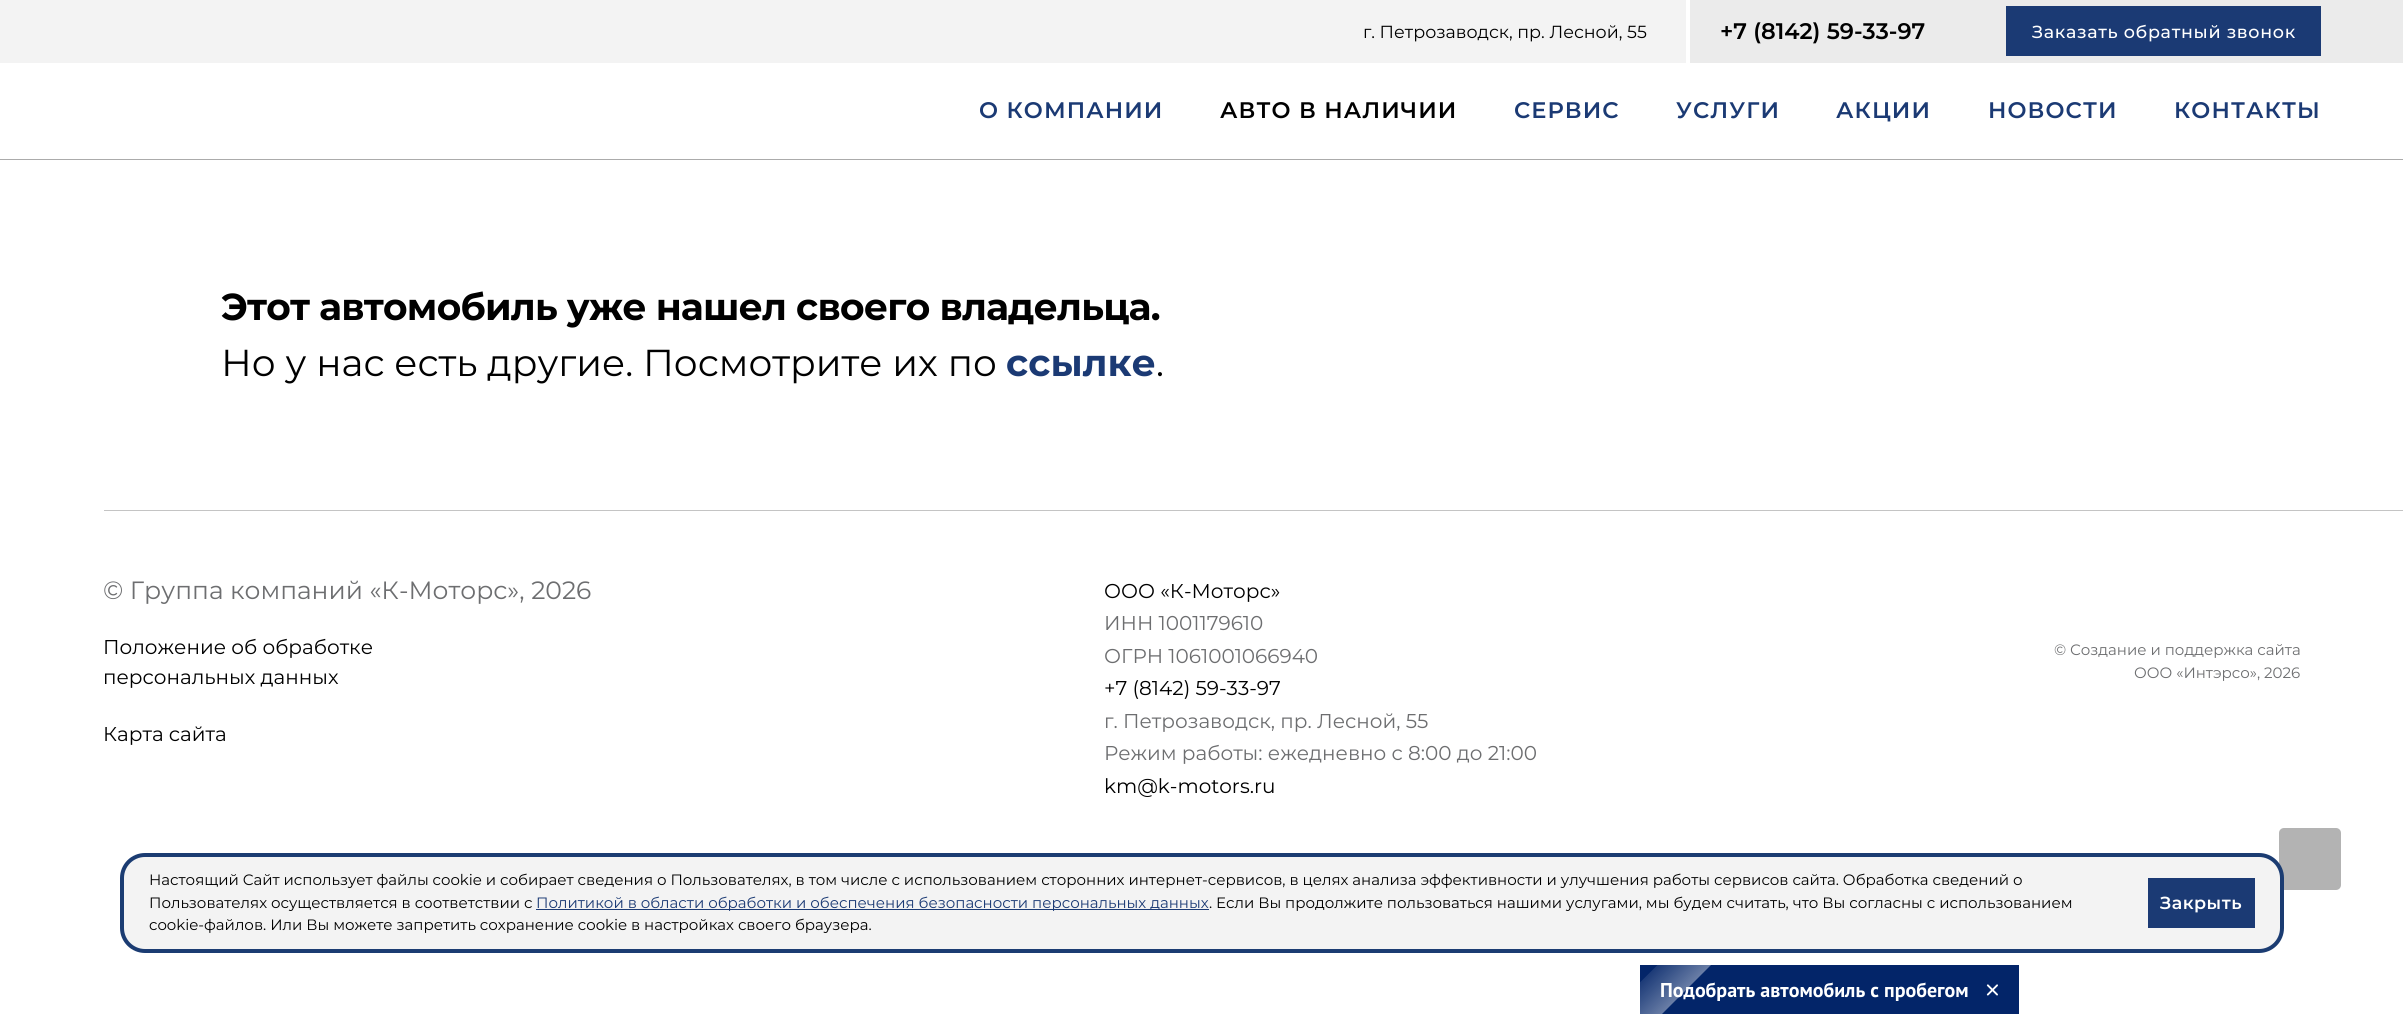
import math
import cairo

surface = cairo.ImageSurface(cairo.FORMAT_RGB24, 2403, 1014)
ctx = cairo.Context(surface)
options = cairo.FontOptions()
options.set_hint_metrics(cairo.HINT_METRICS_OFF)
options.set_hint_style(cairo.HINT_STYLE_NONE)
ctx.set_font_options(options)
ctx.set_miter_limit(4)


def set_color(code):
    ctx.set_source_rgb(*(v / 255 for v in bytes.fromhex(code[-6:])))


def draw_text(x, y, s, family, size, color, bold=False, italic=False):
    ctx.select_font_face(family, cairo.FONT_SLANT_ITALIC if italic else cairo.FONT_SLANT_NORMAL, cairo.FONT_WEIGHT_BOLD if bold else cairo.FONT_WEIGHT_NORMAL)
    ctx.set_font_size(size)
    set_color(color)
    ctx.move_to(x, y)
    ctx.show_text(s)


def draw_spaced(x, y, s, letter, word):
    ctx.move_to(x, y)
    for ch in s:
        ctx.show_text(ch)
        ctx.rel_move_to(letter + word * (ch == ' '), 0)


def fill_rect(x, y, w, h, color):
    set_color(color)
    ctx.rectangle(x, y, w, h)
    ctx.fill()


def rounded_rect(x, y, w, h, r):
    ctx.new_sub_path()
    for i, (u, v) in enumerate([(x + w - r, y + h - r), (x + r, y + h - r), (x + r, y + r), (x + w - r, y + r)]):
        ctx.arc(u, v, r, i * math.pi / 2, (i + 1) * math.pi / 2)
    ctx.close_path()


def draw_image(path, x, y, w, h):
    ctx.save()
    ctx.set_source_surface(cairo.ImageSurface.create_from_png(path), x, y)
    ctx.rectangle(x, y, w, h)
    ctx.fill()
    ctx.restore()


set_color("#ffffff")
ctx.paint()
fill_rect(0, 0, 1686, 63, "#f3f3f3")
draw_text(1363, 38, "г. Петрозаводск, пр. Лесной, 55", "Montserrat", 17.5, "#000000")
fill_rect(1690, 0, 713, 63, "#ebebeb")
draw_text(1720, 39, "+7 (8142) 59-33-97", "Montserrat SemiBold", 22.5, "#000000")
fill_rect(2006, 6, 315, 50, "#1b3a74")
ctx.select_font_face("Montserrat Medium")
ctx.set_font_size(17.5)
set_color("#ffffff")
draw_spaced(2032, 38, "Заказать обратный звонок", 0.7, 0)
ctx.select_font_face("Montserrat SemiBold")
ctx.set_font_size(22.5)
set_color("#1b3a74")
draw_spaced(979, 118, "О КОМПАНИИ", 1.1, 0)
set_color("#000000")
draw_spaced(1220, 118, "АВТО В НАЛИЧИИ", 1.1, 0)
set_color("#1b3a74")
draw_spaced(1514, 118, "СЕРВИС", 1.1, 0)
draw_spaced(1676, 118, "УСЛУГИ", 1.1, 0)
draw_spaced(1836, 118, "АКЦИИ", 1.1, 0)
draw_spaced(1988, 118, "НОВОСТИ", 1.1, 0)
draw_spaced(2174, 118, "КОНТАКТЫ", 1.1, 0)
fill_rect(0, 159, 2403, 1, "#ababab")
ctx.select_font_face("Montserrat", cairo.FONT_SLANT_NORMAL, cairo.FONT_WEIGHT_BOLD)
ctx.set_font_size(37.5)
set_color("#000000")
draw_spaced(221, 320, "Этот автомобиль уже нашел своего владельца.", -0.75, 0)
draw_text(221, 376, "Но у нас есть другие. Посмотрите их по", "Montserrat", 37.5, "#000000")
draw_text(1006, 376, "ссылке", "Montserrat", 37.5, "#1b3a74", bold=True)
draw_text(1156, 376, ".", "Montserrat", 37.5, "#000000")
fill_rect(104, 510, 2299, 1, "#c4c4c4")
draw_text(103, 599, "© Группа компаний «К-Моторс», 2026", "Montserrat", 25, "#6d6e70")
draw_text(103, 654, "Положение об обработке", "Montserrat", 20, "#000000")
draw_text(103, 684, "персональных данных", "Montserrat", 20, "#000000")
draw_text(103, 741, "Карта сайта", "Montserrat", 20, "#000000")
draw_text(1104, 598, "ООО «К-Моторс»", "Montserrat", 20, "#000000")
draw_text(1104, 630, "ИНН 1001179610", "Montserrat", 20, "#6d6e70")
draw_text(1104, 663, "ОГРН 1061001066940", "Montserrat", 20, "#6d6e70")
draw_text(1104, 695, "+7 (8142) 59-33-97", "Montserrat", 20, "#000000")
draw_text(1104, 728, "г. Петрозаводск, пр. Лесной, 55", "Montserrat", 20, "#6d6e70")
draw_text(1104, 760, "Режим работы: ежедневно с 8:00 до 21:00", "Montserrat", 20, "#6d6e70")
draw_text(1104, 793, "km@k-motors.ru", "Montserrat", 20, "#000000")
draw_text(2054, 655, "© Создание и поддержка сайта", "Montserrat", 15, "#6d6e70")
draw_text(2134, 678, "ООО «Интэрсо», 2026", "Montserrat", 15, "#6d6e70")
set_color("#b3b3b3")
rounded_rect(2279, 828, 62, 62, 5)
ctx.fill()
set_color("#f3f3f3")
rounded_rect(122, 855, 2160, 96, 23)
ctx.fill_preserve()
set_color("#1b3c72")
ctx.set_line_width(4)
ctx.stroke()
draw_text(149, 885, "Настоящий Сайт использует файлы cookie и собирает сведения о Пользователях, в том числе с использованием сторонних интернет-сервисов, в целях анализа эффективности и улучшения работы сервисов сайта. Обработка сведений о", "Montserrat", 15, "#000000")
draw_text(149, 908, "Пользователях осуществляется в соответствии с", "Montserrat", 15, "#000000")
fill_rect(536, 909, 673, 1, "#1b3a74")
draw_text(536, 908, "Политикой в области обработки и обеспечения безопасности персональных данных", "Montserrat", 15, "#1b3a74")
draw_text(1209, 908, ". Если Вы продолжите пользоваться нашими услугами, мы будем считать, что Вы согласны с использованием", "Montserrat", 15, "#000000")
draw_text(149, 930, "cookie-файлов. Или Вы можете запретить сохранение cookie в настройках своего браузера.", "Montserrat", 15, "#000000")
fill_rect(2148, 878, 107, 50, "#1b3a74")
ctx.select_font_face("Montserrat SemiBold")
ctx.set_font_size(17.5)
set_color("#ffffff")
draw_spaced(2160, 909, "Закрыть", 0.5, 0)
fill_rect(1640, 965, 379, 49, "#032569")
draw_text(1660, 997, "Подобрать автомобиль с пробегом", "PT Sans", 20, "#ffffff", bold=True)
ctx.save()
ctx.rectangle(1640, 965, 379, 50)
ctx.clip()
gradient = cairo.LinearGradient(1671, 952, 1697, 978)
gradient.add_color_stop_rgba(0, 1, 1, 1, 0.1)
gradient.add_color_stop_rgba(1, 1, 1, 1, 0.4)
ctx.set_source(gradient)
ctx.new_path()
ctx.move_to(1804, 819)
ctx.line_to(1830, 846)
ctx.line_to(1565, 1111)
ctx.line_to(1538, 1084)
ctx.close_path()
ctx.fill()
ctx.restore()
draw_image("assets/img1.png", 1986, 984, 12, 12)
surface.write_to_png("output.png")
